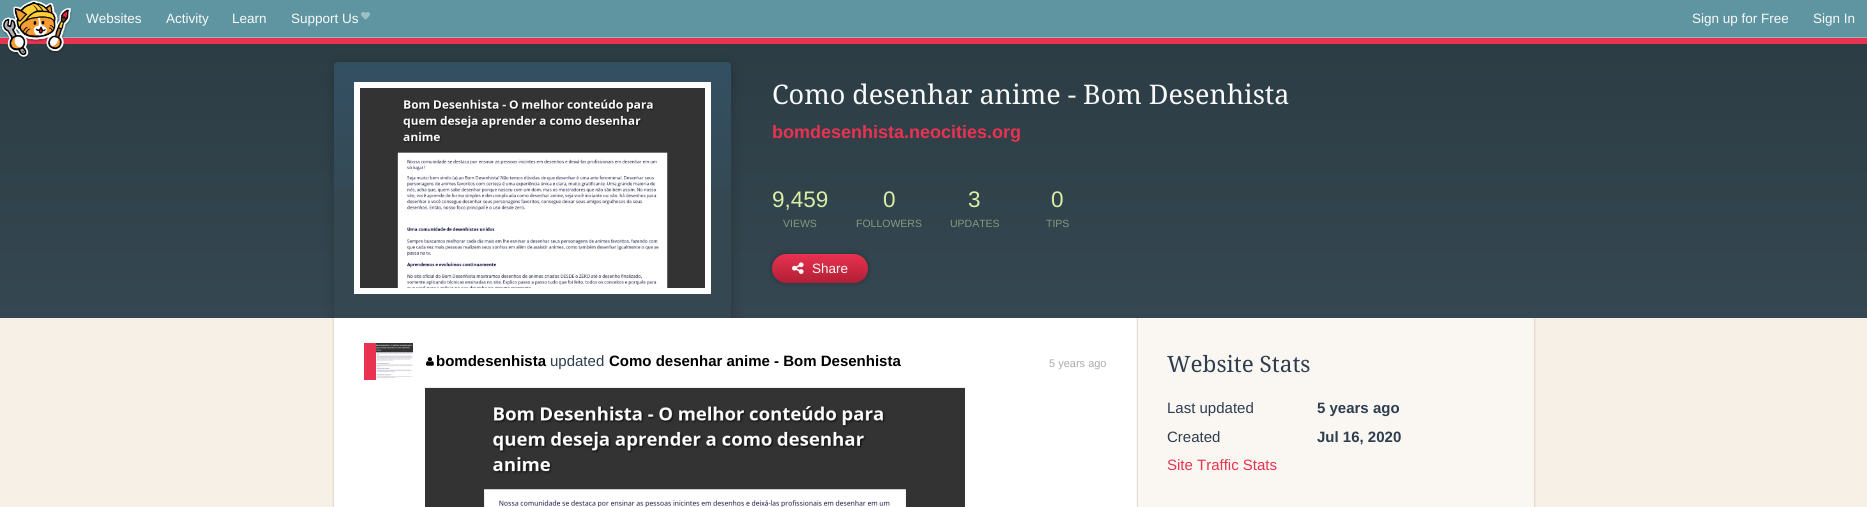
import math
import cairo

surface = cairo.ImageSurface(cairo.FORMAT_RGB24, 1867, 507)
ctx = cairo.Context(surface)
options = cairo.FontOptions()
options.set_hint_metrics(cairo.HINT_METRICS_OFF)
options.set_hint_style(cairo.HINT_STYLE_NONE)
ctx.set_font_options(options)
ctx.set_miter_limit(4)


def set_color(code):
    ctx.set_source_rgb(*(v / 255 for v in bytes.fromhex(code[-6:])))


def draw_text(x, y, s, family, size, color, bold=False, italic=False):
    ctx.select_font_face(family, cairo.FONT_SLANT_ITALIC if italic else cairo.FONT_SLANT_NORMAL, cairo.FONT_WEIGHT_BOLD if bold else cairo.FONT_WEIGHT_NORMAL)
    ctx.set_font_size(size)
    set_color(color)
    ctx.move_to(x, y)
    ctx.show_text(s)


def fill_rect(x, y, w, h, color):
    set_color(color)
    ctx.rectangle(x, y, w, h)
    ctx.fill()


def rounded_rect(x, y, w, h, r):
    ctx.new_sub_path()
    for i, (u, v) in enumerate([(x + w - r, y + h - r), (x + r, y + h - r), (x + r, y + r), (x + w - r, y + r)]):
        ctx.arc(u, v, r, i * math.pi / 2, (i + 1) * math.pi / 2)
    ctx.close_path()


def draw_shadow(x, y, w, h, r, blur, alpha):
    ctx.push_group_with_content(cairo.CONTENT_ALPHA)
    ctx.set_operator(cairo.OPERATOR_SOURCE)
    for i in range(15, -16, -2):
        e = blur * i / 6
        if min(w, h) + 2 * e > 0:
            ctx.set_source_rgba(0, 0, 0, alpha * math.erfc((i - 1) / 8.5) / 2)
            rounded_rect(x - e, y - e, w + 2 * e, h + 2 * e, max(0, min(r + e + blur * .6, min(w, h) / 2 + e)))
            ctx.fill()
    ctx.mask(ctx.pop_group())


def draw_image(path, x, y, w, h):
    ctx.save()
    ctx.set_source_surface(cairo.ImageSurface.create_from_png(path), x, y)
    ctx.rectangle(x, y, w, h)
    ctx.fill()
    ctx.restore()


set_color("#f6f0e6")
ctx.paint()
gradient = cairo.LinearGradient(934, 22, 934, 318)
gradient.add_color_stop_rgba(0, 0.169, 0.235, 0.263, 1)
gradient.add_color_stop_rgba(1, 0.208, 0.278, 0.318, 1)
ctx.set_source(gradient)
ctx.rectangle(0, 44, 1867, 274)
ctx.fill()
ctx.save()
ctx.rectangle(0, 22, 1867, 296)
ctx.clip()
set_color("#000000")
draw_shadow(333, 62, 401, 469, 6, 6, 0.15)
ctx.restore()
fill_rect(0, 38, 1867, 6, "#e93250")
fill_rect(0, 0, 1867, 37, "#5e95a1")
fill_rect(0, 37, 1867, 1, "#92b4bd")
draw_image("assets/img1.png", 1, 0, 71, 59)
draw_text(86, 23, "Websites", "Liberation Sans", 13.5, "#fafafa")
draw_text(166, 23, "Activity", "Liberation Sans", 13.5, "#fafafa")
draw_text(232, 23, "Learn", "Liberation Sans", 13.5, "#fafafa")
draw_text(291, 23, "Support Us", "Liberation Sans", 13.5, "#fafafa")
draw_image("assets/img2.png", 361, 12, 9, 8)
draw_text(1692, 23, "Sign up for Free", "Liberation Sans", 13.5, "#fafafa")
draw_text(1813, 23, "Sign In", "Liberation Sans", 13.5, "#fafafa")
set_color("#354751")
ctx.new_path()
ctx.move_to(338, 62)
ctx.line_to(727, 62)
ctx.curve_to(729, 62, 731, 64, 731, 66)
ctx.line_to(731, 318)
ctx.line_to(334, 318)
ctx.line_to(334, 66)
ctx.curve_to(334, 64, 336, 62, 338, 62)
ctx.close_path()
ctx.fill()
draw_image("assets/img3.png", 334, 62, 397, 126)
draw_image("assets/img4.png", 360, 88, 345, 200)
ctx.rectangle(357, 85, 351, 206)
set_color("#ffffff")
ctx.set_line_width(6)
ctx.stroke()
draw_text(772, 104, "Como desenhar anime - Bom Desenhista", "Droid Serif", 27, "#fafafa")
draw_text(772, 138, "bomdesenhista.neocities.org", "Liberation Sans", 18, "#e93250", bold=True)
draw_text(772, 207, "9,459", "Liberation Sans", 22.5, "#daeea5")
draw_text(783, 227, "VIEWS", "Liberation Sans", 10.5, "#84997e")
draw_text(883, 207, "0", "Liberation Sans", 22.5, "#daeea5")
draw_text(856, 227, "FOLLOWERS", "Liberation Sans", 10.5, "#84997e")
draw_text(968, 207, "3", "Liberation Sans", 22.5, "#daeea5")
draw_text(950, 227, "UPDATES", "Liberation Sans", 10.5, "#84997e")
draw_text(1051, 207, "0", "Liberation Sans", 22.5, "#daeea5")
draw_text(1046, 227, "TIPS", "Liberation Sans", 10.5, "#84997e")
set_color("#000000")
draw_shadow(772, 254, 96, 29, 14.5, 3, 0.25)
gradient = cairo.LinearGradient(820, 254, 820, 283)
gradient.add_color_stop_rgba(0, 0.914, 0.196, 0.314, 1)
gradient.add_color_stop_rgba(1, 0.694, 0.122, 0.212, 1)
ctx.set_source(gradient)
rounded_rect(772, 254, 96, 29, 14.5)
ctx.fill()
draw_image("assets/img5.png", 792, 262, 12, 12)
draw_text(812, 273, "Share", "Liberation Sans", 13.5, "#fafafa")
set_color("#000000")
draw_shadow(333, 318, 1202, 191, 0, 0.5, 0.1)
fill_rect(1136, 318, 398, 189, "#faf6f1")
fill_rect(1137, 318, 1, 189, "#dddddd")
fill_rect(334, 318, 802, 189, "#ffffff")
fill_rect(364, 343, 12, 37, "#e93250")
draw_image("assets/img6.png", 376, 343, 37, 37)
draw_image("assets/img7.png", 426, 357, 8, 9)
draw_text(436, 366, "bomdesenhista", "Liberation Sans", 15, "#000000", bold=True)
draw_text(550, 366, "updated", "Liberation Sans", 15, "#2c3e50")
draw_text(609, 366, "Como desenhar anime - Bom Desenhista", "Liberation Sans", 15, "#000000", bold=True)
draw_text(1049, 367, "5 years ago", "Liberation Sans", 11, "#aaaaaa")
ctx.save()
ctx.rectangle(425, 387, 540, 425)
ctx.clip()
set_color("#000000")
draw_shadow(425, 389, 540, 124, 0, 2, 0.3)
ctx.restore()
draw_image("assets/img8.png", 425, 388, 540, 119)
draw_text(1167, 372, "Website Stats", "Droid Serif", 22.5, "#2c3e50")
draw_text(1167, 413, "Last updated", "Liberation Sans", 15, "#2c3e50")
draw_text(1317, 413, "5 years ago", "Liberation Sans", 15, "#2c3e50", bold=True)
draw_text(1167, 442, "Created", "Liberation Sans", 15, "#2c3e50")
draw_text(1317, 442, "Jul 16, 2020", "Liberation Sans", 15, "#2c3e50", bold=True)
draw_text(1167, 470, "Site Traffic Stats", "Liberation Sans", 15, "#e93250")
surface.write_to_png("output.png")
